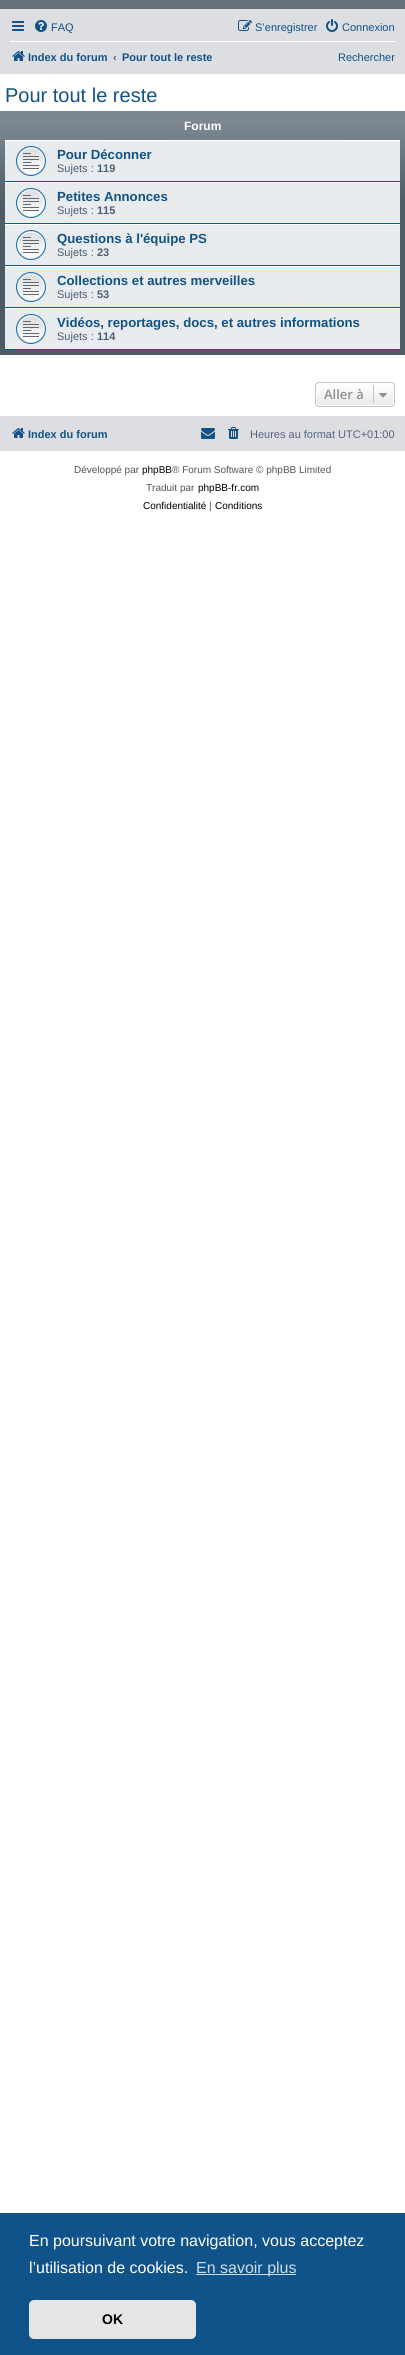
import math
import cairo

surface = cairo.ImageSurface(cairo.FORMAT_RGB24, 405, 2355)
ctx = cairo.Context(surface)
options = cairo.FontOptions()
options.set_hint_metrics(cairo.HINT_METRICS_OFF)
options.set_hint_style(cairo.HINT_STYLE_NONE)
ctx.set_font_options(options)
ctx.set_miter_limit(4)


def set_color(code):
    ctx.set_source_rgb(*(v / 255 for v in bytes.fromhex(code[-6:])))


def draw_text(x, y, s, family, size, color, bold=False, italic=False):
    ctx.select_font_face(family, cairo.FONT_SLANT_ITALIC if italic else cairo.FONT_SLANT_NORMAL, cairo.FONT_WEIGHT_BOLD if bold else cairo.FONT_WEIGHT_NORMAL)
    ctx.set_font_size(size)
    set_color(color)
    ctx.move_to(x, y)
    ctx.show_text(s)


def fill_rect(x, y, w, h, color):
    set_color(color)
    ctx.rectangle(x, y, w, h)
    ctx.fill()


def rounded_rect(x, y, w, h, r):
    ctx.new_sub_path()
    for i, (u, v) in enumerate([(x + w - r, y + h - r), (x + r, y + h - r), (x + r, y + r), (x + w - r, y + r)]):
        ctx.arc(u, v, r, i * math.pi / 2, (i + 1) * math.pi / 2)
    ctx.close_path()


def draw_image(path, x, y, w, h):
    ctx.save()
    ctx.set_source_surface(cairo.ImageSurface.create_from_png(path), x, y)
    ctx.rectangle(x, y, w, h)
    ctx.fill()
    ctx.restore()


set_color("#ffffff")
ctx.paint()
fill_rect(0, 0, 405, 9, "#65717a")
fill_rect(0, 9, 405, 65, "#dcdee2")
draw_image("assets/img1.png", 12, 21, 12, 10)
draw_image("assets/img2.png", 35, 20, 12, 12)
draw_text(51, 31, "FAQ", "Liberation Sans", 11, "#105289")
draw_image("assets/img3.png", 238, 20, 14, 11)
draw_text(255, 31, "S’enregistrer", "Liberation Sans", 11, "#105289")
draw_image("assets/img4.png", 326, 19, 12, 13)
draw_text(342, 31, "Connexion", "Liberation Sans", 11, "#105289")
fill_rect(10, 41, 385, 1, "#ffffff")
draw_image("assets/img5.png", 12, 51, 13, 10)
draw_text(28, 61, "Index du forum", "Liberation Sans", 11, "#105289", bold=True)
draw_text(113, 61, "‹", "Liberation Sans", 11, "#536482", bold=True)
draw_text(122, 61, "Pour tout le reste", "Liberation Sans", 11, "#105289", bold=True)
draw_text(338, 61, "Rechercher", "Liberation Sans", 11, "#105289")
draw_text(5, 102, "Pour tout le reste", "Liberation Sans", 20, "#105289")
gradient = cairo.LinearGradient(202, 111, 203, 355)
gradient.add_color_stop_rgba(0, 0.486, 0.533, 0.569, 1)
gradient.add_color_stop_rgba(0.04, 0.486, 0.529, 0.565, 1)
gradient.add_color_stop_rgba(0.1, 0.463, 0.51, 0.545, 1)
gradient.add_color_stop_rgba(0.29, 0.357, 0.4, 0.435, 1)
gradient.add_color_stop_rgba(0.38, 0.314, 0.361, 0.396, 1)
gradient.add_color_stop_rgba(1, 0.314, 0.361, 0.396, 1)
ctx.set_source(gradient)
ctx.rectangle(0, 111, 405, 244)
ctx.fill()
draw_text(184, 130, "Forum", "Liberation Sans", 12, "#ffffff", bold=True)
fill_rect(5, 141, 395, 40, "#e8ecee")
fill_rect(5, 140, 395, 1, "#ffffff")
fill_rect(5, 181, 395, 1, "#00608f")
draw_image("assets/img6.png", 16, 146, 30, 30)
draw_text(57, 159, "Pour Déconner", "Liberation Sans", 13.2, "#105289", bold=True)
draw_text(57, 172, "Sujets :", "Liberation Sans", 11, "#4c5d77")
draw_text(97, 172, "119", "Liberation Sans", 11, "#4c5d77", bold=True)
fill_rect(5, 183, 395, 40, "#e8ecee")
fill_rect(5, 182, 395, 1, "#ffffff")
fill_rect(5, 223, 395, 1, "#00608f")
draw_image("assets/img6.png", 16, 188, 30, 30)
draw_text(57, 201, "Petites Annonces", "Liberation Sans", 13.2, "#105289", bold=True)
draw_text(57, 214, "Sujets :", "Liberation Sans", 11, "#4c5d77")
draw_text(97, 214, "115", "Liberation Sans", 11, "#4c5d77", bold=True)
fill_rect(5, 225, 395, 40, "#e8ecee")
fill_rect(5, 224, 395, 1, "#ffffff")
fill_rect(5, 265, 395, 1, "#00608f")
draw_image("assets/img6.png", 16, 230, 30, 30)
draw_text(57, 243, "Questions à l'équipe PS", "Liberation Sans", 13.2, "#105289", bold=True)
draw_text(57, 256, "Sujets :", "Liberation Sans", 11, "#4c5d77")
draw_text(97, 256, "23", "Liberation Sans", 11, "#4c5d77", bold=True)
fill_rect(5, 267, 395, 40, "#e8ecee")
fill_rect(5, 266, 395, 1, "#ffffff")
fill_rect(5, 307, 395, 1, "#00608f")
draw_image("assets/img6.png", 16, 272, 30, 30)
draw_text(57, 285, "Collections et autres merveilles", "Liberation Sans", 13.2, "#105289", bold=True)
draw_text(57, 298, "Sujets :", "Liberation Sans", 11, "#4c5d77")
draw_text(97, 298, "53", "Liberation Sans", 11, "#4c5d77", bold=True)
fill_rect(5, 309, 395, 40, "#e8ecee")
fill_rect(5, 308, 395, 1, "#ffffff")
fill_rect(5, 349, 395, 1, "#00608f")
draw_image("assets/img6.png", 16, 314, 30, 30)
draw_text(57, 327, "Vidéos, reportages, docs, et autres informations", "Liberation Sans", 13.2, "#105289", bold=True)
draw_text(57, 340, "Sujets :", "Liberation Sans", 11, "#4c5d77")
draw_text(97, 340, "114", "Liberation Sans", 11, "#4c5d77", bold=True)
ctx.save()
rounded_rect(315, 382, 80, 25, 4)
ctx.clip()
gradient = cairo.LinearGradient(355, 383, 355, 406)
gradient.add_color_stop_rgba(0, 1, 1, 1, 1)
gradient.add_color_stop_rgba(1, 0.914, 0.914, 0.914, 1)
ctx.set_source(gradient)
ctx.rectangle(315, 383, 80, 23)
ctx.fill()
ctx.restore()
rounded_rect(316.5, 383.5, 77, 22, 2.5)
set_color("#ffffff")
ctx.set_line_width(1)
ctx.stroke()
rounded_rect(315.5, 382.5, 79, 24, 3.5)
set_color("#c7c3bf")
ctx.stroke()
draw_text(324, 399, "Aller à", "Open Sans SemiBold", 13, "#8f8f8f")
fill_rect(373, 385, 1, 18, "#c7c3bf")
draw_image("assets/img7.png", 379, 393, 8, 5)
fill_rect(0, 416, 405, 35, "#dcdee2")
draw_image("assets/img5.png", 12, 428, 13, 10)
draw_text(28, 438, "Index du forum", "Liberation Sans", 11, "#105289", bold=True)
draw_image("assets/img8.png", 201, 428, 14, 11)
draw_image("assets/img9.png", 228, 427, 11, 12)
draw_text(250, 438, "Heures au format UTC+01:00", "Liberation Sans", 11, "#536482")
draw_text(74, 473, "Développé par", "Liberation Sans", 10, "#555555")
draw_text(142, 473, "phpBB", "Liberation Sans", 10, "#000000")
draw_text(172, 473, "® Forum Software © phpBB Limited", "Liberation Sans", 10, "#555555")
draw_text(146, 491, "Traduit par", "Liberation Sans", 10, "#555555")
draw_text(198, 491, "phpBB-fr.com", "Liberation Sans", 10, "#000000")
draw_text(143, 509, "Confidentialité", "Liberation Sans", 10, "#000000")
draw_text(209, 509, "|", "Liberation Sans", 10, "#555555")
draw_text(215, 509, "Conditions", "Liberation Sans", 10, "#000000")
fill_rect(0, 2213, 405, 142, "#0f538a")
draw_text(29, 2246, "En poursuivant votre navigation, vous acceptez", "Liberation Sans", 16, "#ffffff")
draw_text(29, 2273, "l’utilisation de cookies.", "Liberation Sans", 16, "#ffffff")
fill_rect(196, 2274, 100, 1, "#cfdde8")
draw_text(196, 2273, "En savoir plus", "Liberation Sans", 16, "#cfdde8")
set_color("#e5e5e5")
rounded_rect(29, 2300, 167, 39, 5)
ctx.fill()
draw_text(102, 2324, "OK", "Liberation Sans", 14, "#000000", bold=True)
surface.write_to_png("output.png")
